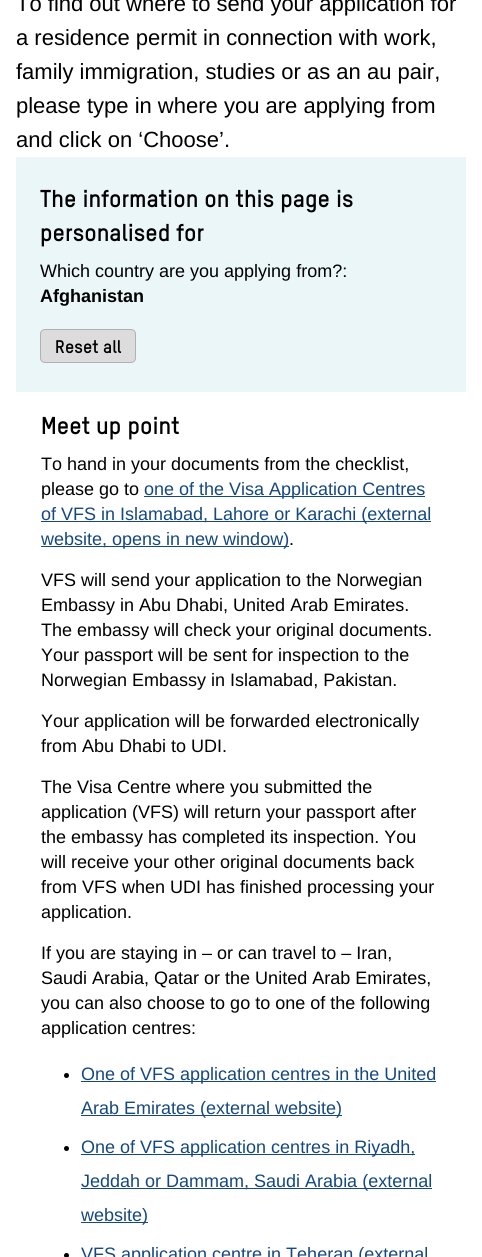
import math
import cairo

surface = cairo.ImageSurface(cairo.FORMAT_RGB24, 482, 1257)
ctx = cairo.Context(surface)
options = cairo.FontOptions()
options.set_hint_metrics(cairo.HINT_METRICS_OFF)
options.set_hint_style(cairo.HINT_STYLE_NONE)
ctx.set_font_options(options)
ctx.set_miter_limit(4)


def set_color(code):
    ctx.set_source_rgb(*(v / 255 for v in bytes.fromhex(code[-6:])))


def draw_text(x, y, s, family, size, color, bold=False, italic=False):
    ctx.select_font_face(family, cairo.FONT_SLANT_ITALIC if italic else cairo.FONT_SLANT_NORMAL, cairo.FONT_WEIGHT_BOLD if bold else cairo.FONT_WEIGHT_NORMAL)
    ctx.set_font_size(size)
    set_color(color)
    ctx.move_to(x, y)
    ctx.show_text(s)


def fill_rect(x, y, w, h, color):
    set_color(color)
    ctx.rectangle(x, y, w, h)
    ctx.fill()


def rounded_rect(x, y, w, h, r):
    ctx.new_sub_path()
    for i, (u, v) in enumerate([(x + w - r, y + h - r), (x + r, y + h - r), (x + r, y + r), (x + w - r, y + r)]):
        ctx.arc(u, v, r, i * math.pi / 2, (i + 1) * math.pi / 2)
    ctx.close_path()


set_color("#ffffff")
ctx.paint()
draw_text(16, 11, "To find out where to send your application for", "Liberation Sans", 22, "#000000")
draw_text(16, 45, "a residence permit in connection with work,", "Liberation Sans", 22, "#000000")
draw_text(16, 79, "family immigration, studies or as an au pair,", "Liberation Sans", 22, "#000000")
draw_text(16, 113, "please type in where you are applying from", "Liberation Sans", 22, "#000000")
draw_text(16, 147, "and click on ‘Choose’.", "Liberation Sans", 22, "#000000")
fill_rect(16, 157, 450, 235, "#ebf6f8")
draw_text(40, 207, "The information on this page is", "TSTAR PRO", 24, "#000000", bold=True)
draw_text(40, 241, "personalised for", "TSTAR PRO", 24, "#000000", bold=True)
draw_text(40, 277, "Which country are you applying from?:", "Liberation Sans", 18, "#000000")
draw_text(40, 302, "Afghanistan", "Liberation Sans", 18, "#000000", bold=True)
set_color("#dcdcdc")
rounded_rect(40.5, 329.5, 95, 33, 4.5)
ctx.fill_preserve()
set_color("#b1b1b1")
ctx.set_line_width(1)
ctx.stroke()
draw_text(55, 353, "Reset all", "TSTAR PRO", 18, "#000000", bold=True)
draw_text(41, 434, "Meet up point", "TSTAR PRO", 24, "#000000", bold=True)
draw_text(41, 470, "To hand in your documents from the checklist,", "Liberation Sans", 18, "#000000")
draw_text(41, 495, "please go to", "Liberation Sans", 18, "#000000")
fill_rect(144, 496, 281, 1, "#154881")
draw_text(144, 495, "one of the Visa Application Centres", "Liberation Sans", 18, "#154881")
fill_rect(41, 521, 390, 1, "#154881")
draw_text(41, 520, "of VFS in Islamabad, Lahore or Karachi (external", "Liberation Sans", 18, "#154881")
fill_rect(41, 546, 248, 1, "#154881")
draw_text(41, 545, "website, opens in new window)", "Liberation Sans", 18, "#154881")
draw_text(289, 545, ".", "Liberation Sans", 18, "#000000")
draw_text(41, 586, "VFS will send your application to the Norwegian", "Liberation Sans", 18, "#000000")
draw_text(41, 611, "Embassy in Abu Dhabi, United Arab Emirates.", "Liberation Sans", 18, "#000000")
draw_text(41, 636, "The embassy will check your original documents.", "Liberation Sans", 18, "#000000")
draw_text(41, 661, "Your passport will be sent for inspection to the", "Liberation Sans", 18, "#000000")
draw_text(41, 686, "Norwegian Embassy in Islamabad, Pakistan.", "Liberation Sans", 18, "#000000")
draw_text(41, 727, "Your application will be forwarded electronically", "Liberation Sans", 18, "#000000")
draw_text(41, 752, "from Abu Dhabi to UDI.", "Liberation Sans", 18, "#000000")
draw_text(41, 793, "The Visa Centre where you submitted the", "Liberation Sans", 18, "#000000")
draw_text(41, 818, "application (VFS) will return your passport after", "Liberation Sans", 18, "#000000")
draw_text(41, 843, "the embassy has completed its inspection. You", "Liberation Sans", 18, "#000000")
draw_text(41, 868, "will receive your other original documents back", "Liberation Sans", 18, "#000000")
draw_text(41, 893, "from VFS when UDI has finished processing your", "Liberation Sans", 18, "#000000")
draw_text(41, 918, "application.", "Liberation Sans", 18, "#000000")
draw_text(41, 959, "If you are staying in – or can travel to – Iran,", "Liberation Sans", 18, "#000000")
draw_text(41, 984, "Saudi Arabia, Qatar or the United Arab Emirates,", "Liberation Sans", 18, "#000000")
draw_text(41, 1009, "you can also choose to go to one of the following", "Liberation Sans", 18, "#000000")
draw_text(41, 1034, "application centres:", "Liberation Sans", 18, "#000000")
ctx.new_path()
ctx.arc(66.5, 1075.5, 2.5, 0, 2 * math.pi)
ctx.fill()
fill_rect(81, 1081, 355, 1, "#154881")
draw_text(81, 1080, "One of VFS application centres in the United", "Liberation Sans", 18, "#154881")
fill_rect(81, 1115, 261, 1, "#154881")
draw_text(81, 1114, "Arab Emirates (external website)", "Liberation Sans", 18, "#154881")
set_color("#000000")
ctx.new_path()
ctx.arc(66.5, 1148.5, 2.5, 0, 2 * math.pi)
ctx.fill()
fill_rect(81, 1154, 334, 1, "#154881")
draw_text(81, 1153, "One of VFS application centres in Riyadh,", "Liberation Sans", 18, "#154881")
fill_rect(81, 1188, 351, 1, "#154881")
draw_text(81, 1187, "Jeddah or Dammam, Saudi Arabia (external", "Liberation Sans", 18, "#154881")
fill_rect(81, 1222, 67, 1, "#154881")
draw_text(81, 1221, "website)", "Liberation Sans", 18, "#154881")
set_color("#000000")
ctx.new_path()
ctx.arc(66.5, 1255.5, 2.5, 0, 2 * math.pi)
ctx.fill()
draw_text(81, 1260, "VFS application centre in Teheran (external", "Liberation Sans", 18, "#154881")
surface.write_to_png("output.png")
